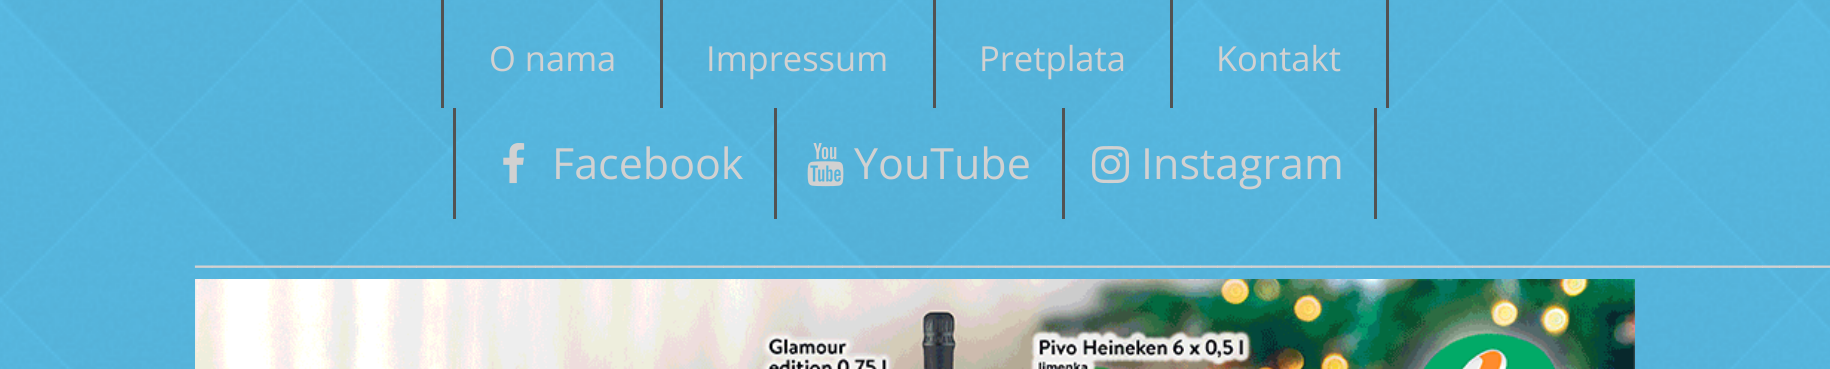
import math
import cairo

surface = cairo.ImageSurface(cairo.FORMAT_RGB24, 1830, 369)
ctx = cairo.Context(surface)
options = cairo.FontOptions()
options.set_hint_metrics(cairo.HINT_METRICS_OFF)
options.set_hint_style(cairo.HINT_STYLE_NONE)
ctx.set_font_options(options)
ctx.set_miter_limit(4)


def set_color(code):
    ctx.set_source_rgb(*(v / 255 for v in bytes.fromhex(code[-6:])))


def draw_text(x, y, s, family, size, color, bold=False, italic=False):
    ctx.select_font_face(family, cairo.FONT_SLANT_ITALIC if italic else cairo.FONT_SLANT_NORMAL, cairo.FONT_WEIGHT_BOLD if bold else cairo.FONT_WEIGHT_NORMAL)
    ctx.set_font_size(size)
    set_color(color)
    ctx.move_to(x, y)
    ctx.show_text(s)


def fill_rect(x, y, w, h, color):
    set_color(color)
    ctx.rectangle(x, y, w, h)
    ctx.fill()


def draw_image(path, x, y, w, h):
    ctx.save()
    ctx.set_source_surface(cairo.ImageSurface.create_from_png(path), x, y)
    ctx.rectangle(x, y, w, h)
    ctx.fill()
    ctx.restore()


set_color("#ffffff")
ctx.paint()
draw_image("assets/img1.png", 0, 0, 1830, 369)
fill_rect(660, 0, 3, 108, "#525252")
fill_rect(441, 0, 3, 108, "#525252")
draw_text(489, 71, "O nama", "Open Sans", 34.5, "#d1d1d1")
fill_rect(933, 0, 3, 108, "#525252")
draw_text(706, 71, "Impressum", "Open Sans", 34.5, "#d1d1d1")
fill_rect(1170, 0, 3, 108, "#525252")
draw_text(979, 71, "Pretplata", "Open Sans", 34.5, "#d1d1d1")
fill_rect(1386, 0, 3, 108, "#525252")
draw_text(1216, 71, "Kontakt", "Open Sans", 34.5, "#d1d1d1")
fill_rect(774, 108, 3, 111, "#525252")
fill_rect(453, 108, 3, 111, "#525252")
draw_image("assets/img2.png", 503, 143, 22, 41)
draw_text(552, 179, "Facebook", "Open Sans", 43, "#d1d1d1")
fill_rect(1062, 108, 3, 111, "#525252")
draw_image("assets/img3.png", 807, 143, 37, 44)
draw_text(854, 179, "YouTube", "Open Sans", 43, "#d1d1d1")
fill_rect(1374, 108, 3, 111, "#525252")
draw_image("assets/img4.png", 1092, 146, 37, 38)
draw_text(1141, 179, "Instagram", "Open Sans", 43, "#d1d1d1")
draw_text(195, 262, "________________________________________________________________________________________________", "Open Sans", 38.9, "#d1d1d1")
draw_image("assets/img5.png", 195, 279, 1440, 90)
surface.write_to_png("output.png")
